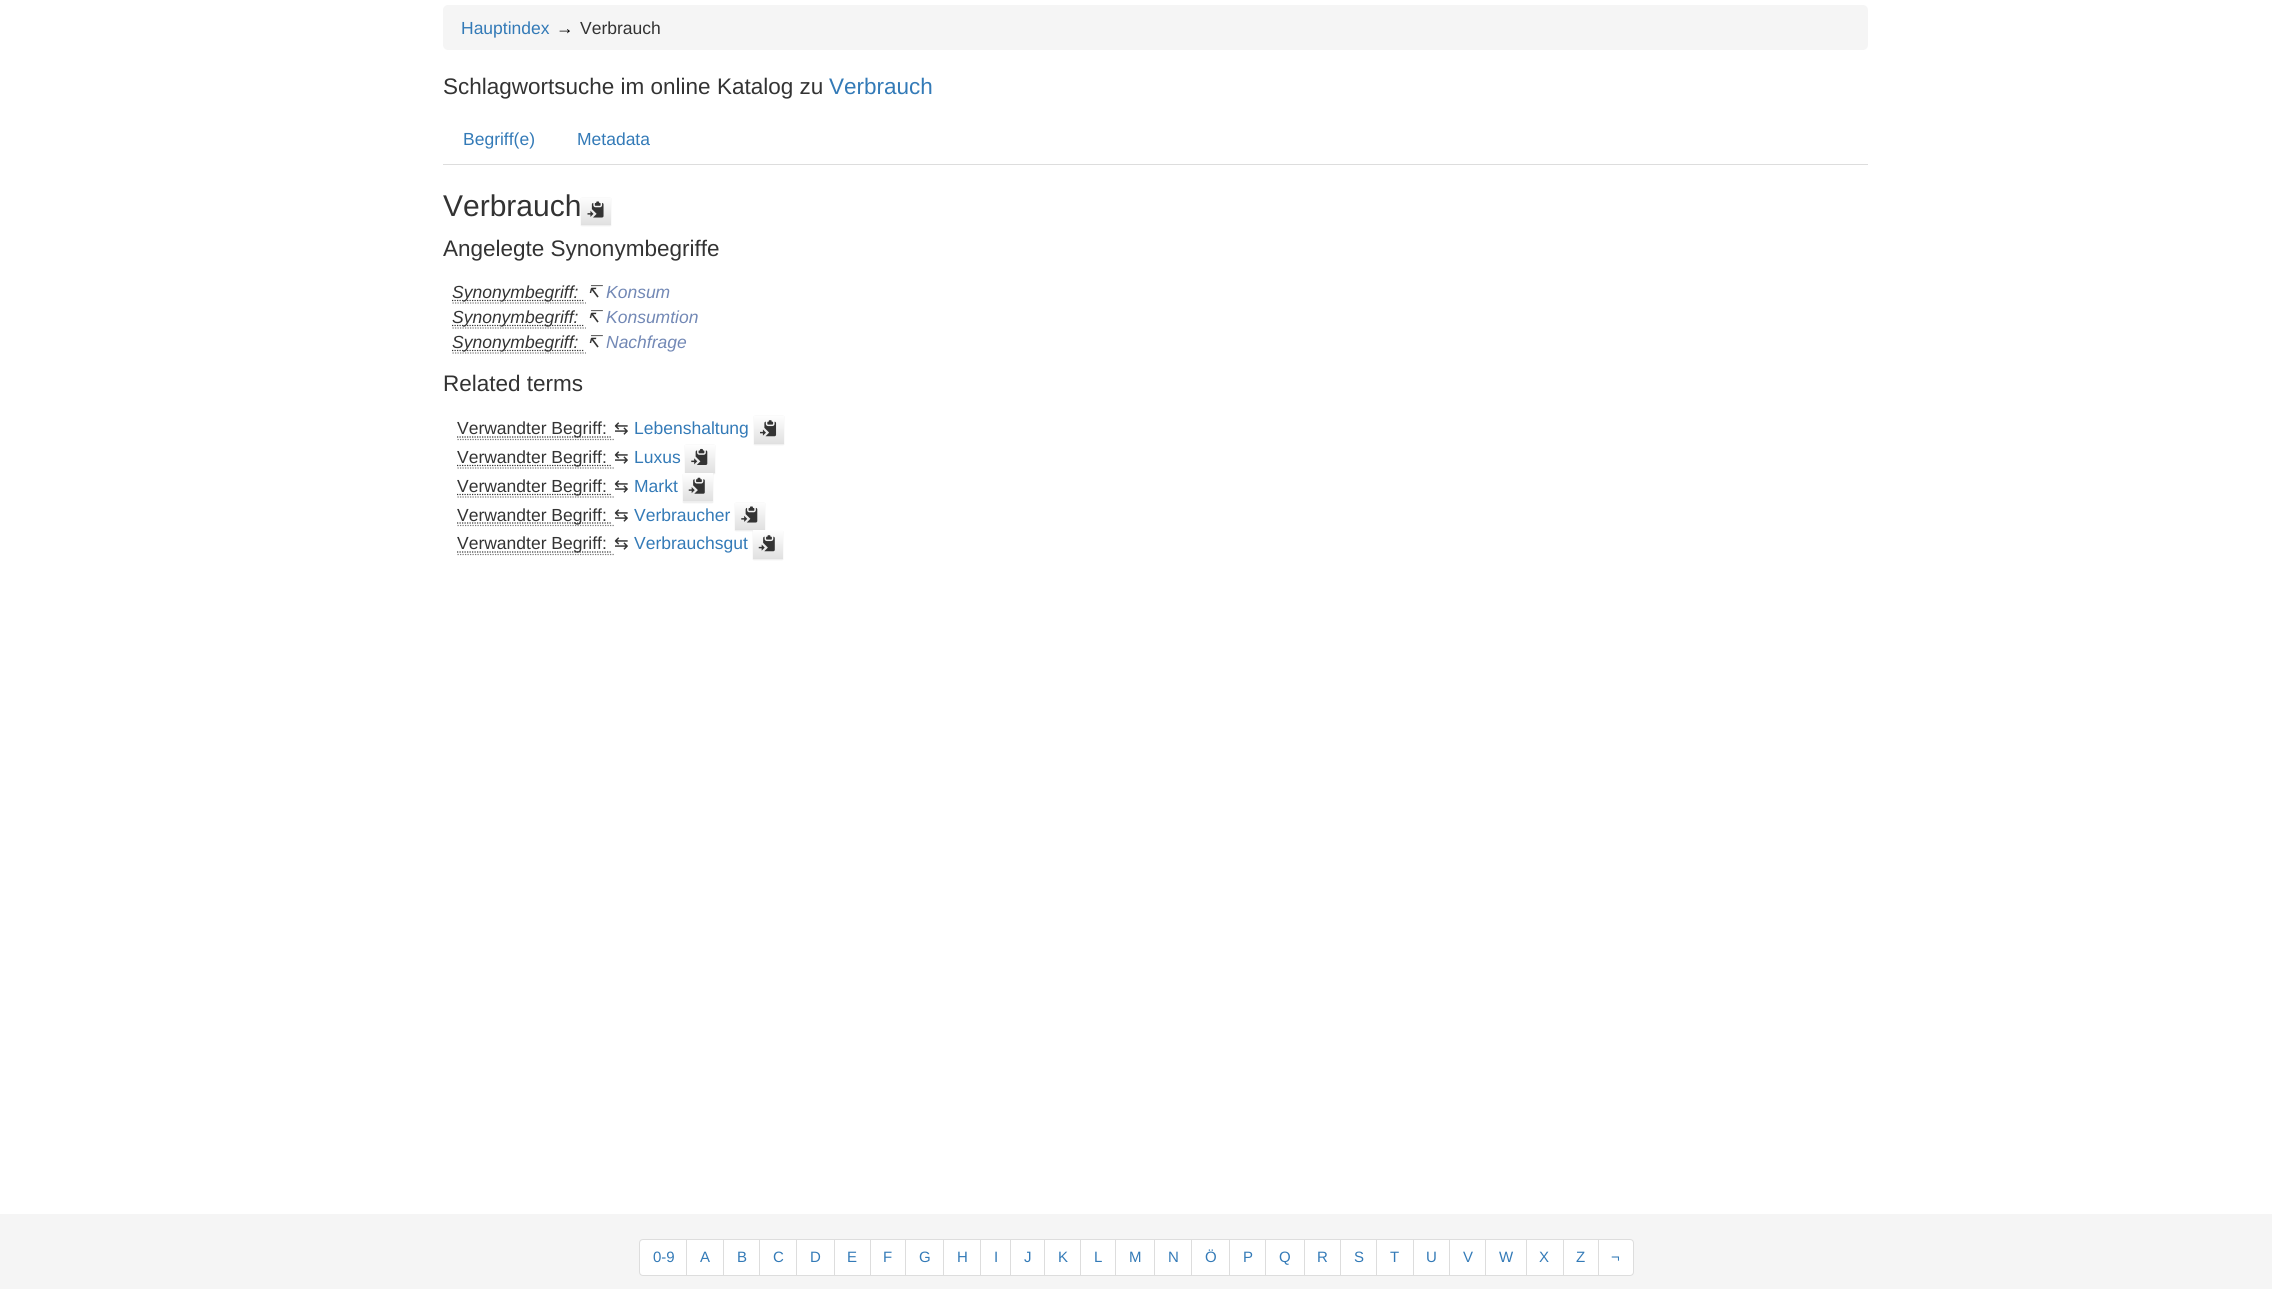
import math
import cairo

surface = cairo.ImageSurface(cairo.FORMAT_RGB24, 2272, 1295)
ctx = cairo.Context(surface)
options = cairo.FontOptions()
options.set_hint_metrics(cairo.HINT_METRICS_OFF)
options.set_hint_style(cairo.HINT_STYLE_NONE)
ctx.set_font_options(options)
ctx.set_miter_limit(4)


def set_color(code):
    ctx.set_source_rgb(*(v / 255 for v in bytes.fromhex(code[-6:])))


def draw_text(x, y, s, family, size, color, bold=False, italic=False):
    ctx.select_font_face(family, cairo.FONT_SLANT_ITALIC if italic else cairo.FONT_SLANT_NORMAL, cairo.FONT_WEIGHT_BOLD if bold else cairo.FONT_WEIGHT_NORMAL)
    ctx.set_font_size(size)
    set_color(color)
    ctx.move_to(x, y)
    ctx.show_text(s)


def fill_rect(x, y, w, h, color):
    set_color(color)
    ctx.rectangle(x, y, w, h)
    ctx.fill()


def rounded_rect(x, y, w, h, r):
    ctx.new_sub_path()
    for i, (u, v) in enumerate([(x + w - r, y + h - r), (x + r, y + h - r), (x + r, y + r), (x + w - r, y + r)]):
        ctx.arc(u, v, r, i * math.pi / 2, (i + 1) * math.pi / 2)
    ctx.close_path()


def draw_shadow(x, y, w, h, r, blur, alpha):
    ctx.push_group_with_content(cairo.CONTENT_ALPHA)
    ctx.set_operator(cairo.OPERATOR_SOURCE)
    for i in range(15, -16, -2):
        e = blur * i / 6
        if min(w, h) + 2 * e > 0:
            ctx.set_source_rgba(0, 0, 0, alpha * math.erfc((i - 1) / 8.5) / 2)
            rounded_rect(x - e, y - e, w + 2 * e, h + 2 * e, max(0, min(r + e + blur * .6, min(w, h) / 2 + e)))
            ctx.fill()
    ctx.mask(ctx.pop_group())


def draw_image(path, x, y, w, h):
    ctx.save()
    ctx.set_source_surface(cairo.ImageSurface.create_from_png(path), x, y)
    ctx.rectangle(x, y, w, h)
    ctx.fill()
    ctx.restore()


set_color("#ffffff")
ctx.paint()
set_color("#f5f5f5")
rounded_rect(443, 5, 1425, 45, 5)
ctx.fill()
draw_text(461, 34, "Hauptindex", "Liberation Sans", 17.5, "#337ab7")
draw_text(556, 34, "→", "Liberation Sans", 17.5, "#000000")
draw_text(580, 34, "Verbrauch", "Liberation Sans", 17.5, "#333333")
draw_text(443, 94, "Schlagwortsuche im online Katalog zu", "Liberation Sans", 22.5, "#333333")
draw_text(829, 94, "Verbrauch", "Liberation Sans", 22.5, "#337ab7")
fill_rect(443, 164, 1425, 1, "#dddddd")
draw_text(463, 145, "Begriff(e)", "Liberation Sans", 17.5, "#337ab7")
draw_text(577, 145, "Metadata", "Liberation Sans", 17.5, "#337ab7")
draw_text(443, 216, "Verbrauch", "Liberation Sans", 30, "#333333")
set_color("#000000")
draw_shadow(581, 198, 30, 28, 0, 0.5, 0.07)
gradient = cairo.LinearGradient(596, 196, 596, 225)
gradient.add_color_stop_rgba(0, 1, 1, 1, 1)
gradient.add_color_stop_rgba(1, 0.878, 0.878, 0.878, 1)
ctx.set_source(gradient)
ctx.rectangle(581, 198, 30, 27)
ctx.fill()
draw_image("assets/img1.png", 587, 201, 17, 17)
draw_text(443, 256, "Angelegte Synonymbegriffe", "Liberation Sans", 22.5, "#333333")
ctx.new_path()
ctx.move_to(452, 300.5)
ctx.line_to(583.5, 300.5)
ctx.set_line_width(1.2)
ctx.set_dash([1.25, 1.25])
ctx.stroke()
draw_text(452, 298, "Synonymbegriff:", "Liberation Sans", 17.5, "#333333", italic=True)
ctx.new_path()
ctx.move_to(452.5, 303)
ctx.line_to(586, 303)
set_color("#777777")
ctx.stroke()
draw_text(586, 298, "↸", "DejaVu Sans", 17.5, "#333333", italic=True)
draw_text(606, 298, "Konsum", "Liberation Sans", 17.5, "#7288b5", italic=True)
ctx.new_path()
ctx.move_to(452, 325.5)
ctx.line_to(583.5, 325.5)
set_color("#333333")
ctx.stroke()
draw_text(452, 323, "Synonymbegriff:", "Liberation Sans", 17.5, "#333333", italic=True)
ctx.new_path()
ctx.move_to(452.5, 328)
ctx.line_to(586, 328)
set_color("#777777")
ctx.stroke()
draw_text(586, 323, "↸", "DejaVu Sans", 17.5, "#333333", italic=True)
draw_text(606, 323, "Konsumtion", "Liberation Sans", 17.5, "#7288b5", italic=True)
ctx.new_path()
ctx.move_to(452, 350.5)
ctx.line_to(583.5, 350.5)
set_color("#333333")
ctx.stroke()
draw_text(452, 348, "Synonymbegriff:", "Liberation Sans", 17.5, "#333333", italic=True)
ctx.new_path()
ctx.move_to(452.5, 353)
ctx.line_to(586, 353)
set_color("#777777")
ctx.stroke()
draw_text(586, 348, "↸", "DejaVu Sans", 17.5, "#333333", italic=True)
draw_text(606, 348, "Nachfrage", "Liberation Sans", 17.5, "#7288b5", italic=True)
draw_text(443, 391, "Related terms", "Liberation Sans", 22.5, "#333333")
ctx.new_path()
ctx.move_to(457, 437)
ctx.line_to(611.5, 437)
ctx.stroke()
draw_text(457, 434, "Verwandter Begriff:", "Liberation Sans", 17.5, "#333333")
ctx.new_path()
ctx.move_to(457.5, 439.5)
ctx.line_to(614, 439.5)
set_color("#777777")
ctx.stroke()
draw_text(614, 434, "⇆", "DejaVu Sans", 17.5, "#333333")
draw_text(634, 434, "Lebenshaltung", "Liberation Sans", 17.5, "#337ab7")
set_color("#000000")
draw_shadow(754, 416, 30, 29, 0, 0.5, 0.07)
gradient = cairo.LinearGradient(769, 415, 769, 444)
gradient.add_color_stop_rgba(0, 1, 1, 1, 1)
gradient.add_color_stop_rgba(1, 0.878, 0.878, 0.878, 1)
ctx.set_source(gradient)
ctx.rectangle(754, 416, 30, 28)
ctx.fill()
draw_image("assets/img2.png", 760, 420, 17, 17)
ctx.new_path()
ctx.move_to(457, 465.5)
ctx.line_to(611.5, 465.5)
set_color("#333333")
ctx.stroke()
draw_text(457, 463, "Verwandter Begriff:", "Liberation Sans", 17.5, "#333333")
ctx.new_path()
ctx.move_to(457.5, 468)
ctx.line_to(614, 468)
set_color("#777777")
ctx.stroke()
draw_text(614, 463, "⇆", "DejaVu Sans", 17.5, "#333333")
draw_text(634, 463, "Luxus", "Liberation Sans", 17.5, "#337ab7")
set_color("#000000")
draw_shadow(685, 445, 30, 29, 0, 0.5, 0.07)
gradient = cairo.LinearGradient(700, 444, 700, 473)
gradient.add_color_stop_rgba(0, 1, 1, 1, 1)
gradient.add_color_stop_rgba(1, 0.878, 0.878, 0.878, 1)
ctx.set_source(gradient)
ctx.rectangle(685, 445, 30, 28)
ctx.fill()
draw_image("assets/img3.png", 691, 448, 17, 17)
ctx.new_path()
ctx.move_to(457, 494.5)
ctx.line_to(611.5, 494.5)
set_color("#333333")
ctx.stroke()
draw_text(457, 492, "Verwandter Begriff:", "Liberation Sans", 17.5, "#333333")
ctx.new_path()
ctx.move_to(457.5, 497)
ctx.line_to(614, 497)
set_color("#777777")
ctx.stroke()
draw_text(614, 492, "⇆", "DejaVu Sans", 17.5, "#333333")
draw_text(634, 492, "Markt", "Liberation Sans", 17.5, "#337ab7")
set_color("#000000")
draw_shadow(683, 474, 30, 29, 0, 0.5, 0.07)
gradient = cairo.LinearGradient(698, 473, 698, 501)
gradient.add_color_stop_rgba(0, 1, 1, 1, 1)
gradient.add_color_stop_rgba(1, 0.878, 0.878, 0.878, 1)
ctx.set_source(gradient)
ctx.rectangle(683, 473, 30, 28)
ctx.fill()
draw_image("assets/img4.png", 688, 477, 17, 17)
ctx.new_path()
ctx.move_to(457.5, 525.5)
ctx.line_to(614, 525.5)
set_color("#777777")
ctx.stroke()
ctx.new_path()
ctx.move_to(457, 523)
ctx.line_to(611.5, 523)
set_color("#333333")
ctx.stroke()
draw_text(457, 521, "Verwandter Begriff:", "Liberation Sans", 17.5, "#333333")
draw_text(614, 521, "⇆", "DejaVu Sans", 17.5, "#333333")
draw_text(634, 521, "Verbraucher", "Liberation Sans", 17.5, "#337ab7")
set_color("#000000")
draw_shadow(735, 503, 30, 28, 0, 0.5, 0.07)
gradient = cairo.LinearGradient(750, 501, 750, 530)
gradient.add_color_stop_rgba(0, 1, 1, 1, 1)
gradient.add_color_stop_rgba(1, 0.878, 0.878, 0.878, 1)
ctx.set_source(gradient)
ctx.rectangle(735, 503, 30, 27)
ctx.fill()
draw_image("assets/img5.png", 741, 506, 17, 17)
ctx.new_path()
ctx.move_to(457, 552)
ctx.line_to(611.5, 552)
set_color("#333333")
ctx.stroke()
draw_text(457, 549, "Verwandter Begriff:", "Liberation Sans", 17.5, "#333333")
ctx.new_path()
ctx.move_to(457.5, 554.5)
ctx.line_to(614, 554.5)
set_color("#777777")
ctx.stroke()
draw_text(614, 549, "⇆", "DejaVu Sans", 17.5, "#333333")
draw_text(634, 549, "Verbrauchsgut", "Liberation Sans", 17.5, "#337ab7")
set_color("#000000")
draw_shadow(753, 531, 30, 29, 0, 0.5, 0.07)
gradient = cairo.LinearGradient(768, 530, 768, 559)
gradient.add_color_stop_rgba(0, 1, 1, 1, 1)
gradient.add_color_stop_rgba(1, 0.878, 0.878, 0.878, 1)
ctx.set_source(gradient)
ctx.rectangle(753, 530, 30, 29)
ctx.fill()
draw_image("assets/img6.png", 758, 535, 17, 17)
fill_rect(0, 1214, 2272, 75, "#f5f5f5")
set_color("#ffffff")
ctx.new_path()
ctx.move_to(643, 1239.5)
ctx.line_to(687.5, 1239.5)
ctx.line_to(687.5, 1275.5)
ctx.line_to(643, 1275.5)
ctx.curve_to(641, 1275.5, 639.5, 1274, 639.5, 1272)
ctx.line_to(639.5, 1243)
ctx.curve_to(639.5, 1241, 641, 1239.5, 643, 1239.5)
ctx.close_path()
ctx.fill_preserve()
set_color("#dddddd")
ctx.set_line_width(1)
ctx.set_dash([])
ctx.stroke()
draw_text(653, 1262, "0-9", "Liberation Sans", 15, "#337ab7")
set_color("#ffffff")
ctx.rectangle(686.5, 1239.5, 37, 36)
ctx.fill_preserve()
set_color("#dddddd")
ctx.stroke()
draw_text(700, 1262, "A", "Liberation Sans", 15, "#337ab7")
set_color("#ffffff")
ctx.rectangle(723.5, 1239.5, 36, 36)
ctx.fill_preserve()
set_color("#dddddd")
ctx.stroke()
draw_text(737, 1262, "B", "Liberation Sans", 15, "#337ab7")
fill_rect(760, 1240, 36, 35, "#ffffff")
ctx.rectangle(759.5, 1239.5, 38, 36)
set_color("#dddddd")
ctx.stroke()
draw_text(773, 1262, "C", "Liberation Sans", 15, "#337ab7")
set_color("#ffffff")
ctx.rectangle(796.5, 1239.5, 38, 36)
ctx.fill_preserve()
set_color("#dddddd")
ctx.stroke()
draw_text(810, 1262, "D", "Liberation Sans", 15, "#337ab7")
set_color("#ffffff")
ctx.rectangle(834.5, 1239.5, 36, 36)
ctx.fill_preserve()
set_color("#dddddd")
ctx.stroke()
draw_text(847, 1262, "E", "Liberation Sans", 15, "#337ab7")
set_color("#ffffff")
ctx.rectangle(870.5, 1239.5, 35, 36)
ctx.fill_preserve()
set_color("#dddddd")
ctx.stroke()
draw_text(883, 1262, "F", "Liberation Sans", 15, "#337ab7")
set_color("#ffffff")
ctx.rectangle(905.5, 1239.5, 38, 36)
ctx.fill_preserve()
set_color("#dddddd")
ctx.stroke()
draw_text(919, 1262, "G", "Liberation Sans", 15, "#337ab7")
set_color("#ffffff")
ctx.rectangle(943.5, 1239.5, 37, 36)
ctx.fill_preserve()
set_color("#dddddd")
ctx.stroke()
draw_text(957, 1262, "H", "Liberation Sans", 15, "#337ab7")
set_color("#ffffff")
ctx.rectangle(980.5, 1239.5, 30, 36)
ctx.fill_preserve()
set_color("#dddddd")
ctx.stroke()
draw_text(994, 1262, "I", "Liberation Sans", 15, "#337ab7")
set_color("#ffffff")
ctx.rectangle(1010.5, 1239.5, 34, 36)
ctx.fill_preserve()
set_color("#dddddd")
ctx.stroke()
draw_text(1024, 1262, "J", "Liberation Sans", 15, "#337ab7")
set_color("#ffffff")
ctx.rectangle(1044.5, 1239.5, 36, 36)
ctx.fill_preserve()
set_color("#dddddd")
ctx.stroke()
draw_text(1058, 1262, "K", "Liberation Sans", 15, "#337ab7")
set_color("#ffffff")
ctx.rectangle(1080.5, 1239.5, 35, 36)
ctx.fill_preserve()
set_color("#dddddd")
ctx.stroke()
draw_text(1094, 1262, "L", "Liberation Sans", 15, "#337ab7")
set_color("#ffffff")
ctx.rectangle(1115.5, 1239.5, 39, 36)
ctx.fill_preserve()
set_color("#dddddd")
ctx.stroke()
draw_text(1129, 1262, "M", "Liberation Sans", 15, "#337ab7")
fill_rect(1155, 1240, 36, 35, "#ffffff")
ctx.rectangle(1154.5, 1239.5, 38, 36)
set_color("#dddddd")
ctx.stroke()
draw_text(1168, 1262, "N", "Liberation Sans", 15, "#337ab7")
set_color("#ffffff")
ctx.rectangle(1191.5, 1239.5, 38, 36)
ctx.fill_preserve()
set_color("#dddddd")
ctx.stroke()
draw_text(1205, 1262, "Ö", "Liberation Sans", 15, "#337ab7")
set_color("#ffffff")
ctx.rectangle(1229.5, 1239.5, 36, 36)
ctx.fill_preserve()
set_color("#dddddd")
ctx.stroke()
draw_text(1243, 1262, "P", "Liberation Sans", 15, "#337ab7")
set_color("#ffffff")
ctx.rectangle(1265.5, 1239.5, 39, 36)
ctx.fill_preserve()
set_color("#dddddd")
ctx.stroke()
draw_text(1279, 1262, "Q", "Liberation Sans", 15, "#337ab7")
set_color("#ffffff")
ctx.rectangle(1304.5, 1239.5, 36, 36)
ctx.fill_preserve()
set_color("#dddddd")
ctx.stroke()
draw_text(1317, 1262, "R", "Liberation Sans", 15, "#337ab7")
fill_rect(1341, 1240, 35, 35, "#ffffff")
ctx.rectangle(1340.5, 1239.5, 37, 36)
set_color("#dddddd")
ctx.stroke()
draw_text(1354, 1262, "S", "Liberation Sans", 15, "#337ab7")
set_color("#ffffff")
ctx.rectangle(1376.5, 1239.5, 37, 36)
ctx.fill_preserve()
set_color("#dddddd")
ctx.stroke()
draw_text(1390, 1262, "T", "Liberation Sans", 15, "#337ab7")
set_color("#ffffff")
ctx.rectangle(1413.5, 1239.5, 36, 36)
ctx.fill_preserve()
set_color("#dddddd")
ctx.stroke()
draw_text(1426, 1262, "U", "Liberation Sans", 15, "#337ab7")
set_color("#ffffff")
ctx.rectangle(1449.5, 1239.5, 36, 36)
ctx.fill_preserve()
set_color("#dddddd")
ctx.stroke()
draw_text(1463, 1262, "V", "Liberation Sans", 15, "#337ab7")
fill_rect(1486, 1240, 40, 35, "#ffffff")
ctx.rectangle(1485.5, 1239.5, 42, 36)
set_color("#dddddd")
ctx.stroke()
draw_text(1499, 1262, "W", "Liberation Sans", 15, "#337ab7")
set_color("#ffffff")
ctx.rectangle(1526.5, 1239.5, 37, 36)
ctx.fill_preserve()
set_color("#dddddd")
ctx.stroke()
draw_text(1539, 1262, "X", "Liberation Sans", 15, "#337ab7")
set_color("#ffffff")
ctx.rectangle(1563.5, 1239.5, 35, 36)
ctx.fill_preserve()
set_color("#dddddd")
ctx.stroke()
draw_text(1576, 1262, "Z", "Liberation Sans", 15, "#337ab7")
set_color("#ffffff")
ctx.new_path()
ctx.move_to(1598.5, 1239.5)
ctx.line_to(1630, 1239.5)
ctx.curve_to(1632, 1239.5, 1633.5, 1241, 1633.5, 1243)
ctx.line_to(1633.5, 1272)
ctx.curve_to(1633.5, 1274, 1632, 1275.5, 1630, 1275.5)
ctx.line_to(1598.5, 1275.5)
ctx.close_path()
ctx.fill_preserve()
set_color("#dddddd")
ctx.stroke()
draw_text(1611, 1262, "¬", "Liberation Sans", 15, "#337ab7")
surface.write_to_png("output.png")
